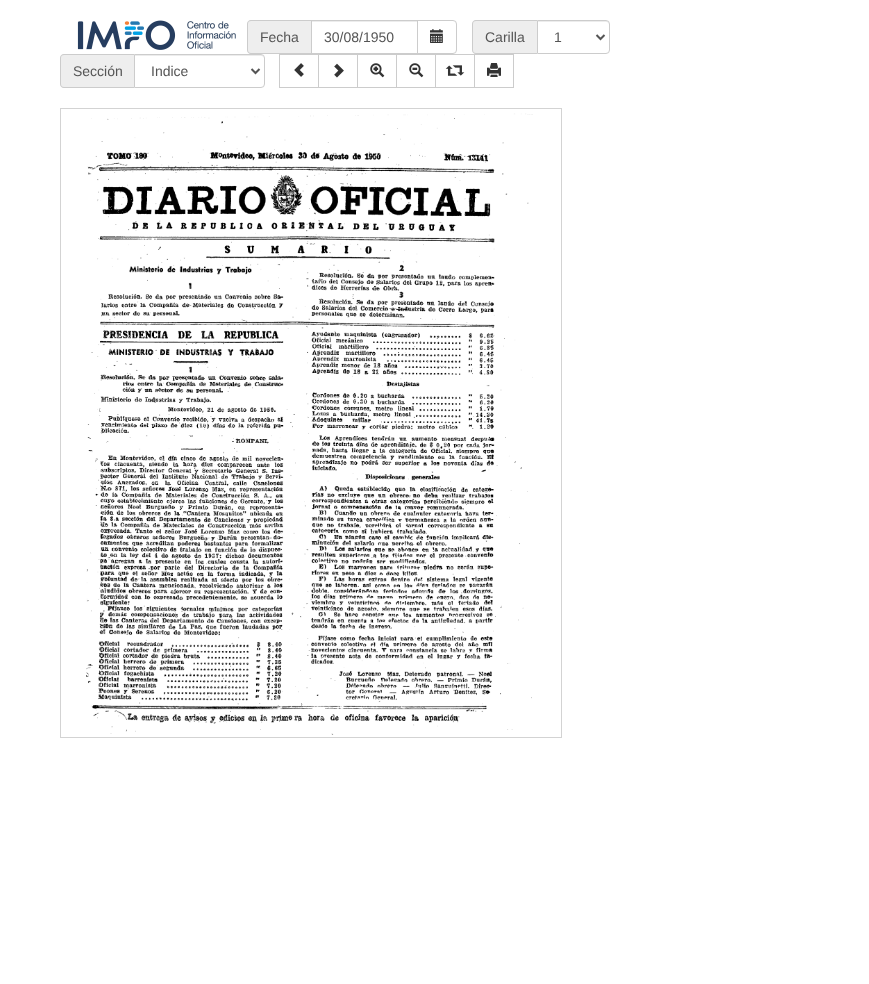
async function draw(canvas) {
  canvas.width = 869
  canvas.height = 984
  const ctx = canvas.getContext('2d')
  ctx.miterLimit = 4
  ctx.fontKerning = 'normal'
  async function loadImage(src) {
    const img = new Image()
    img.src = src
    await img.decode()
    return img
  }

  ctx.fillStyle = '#fff'
  ctx.fillRect(0, 0, 869, 984)
  ctx.drawImage(await loadImage('image0.png'), 77, 20, 159, 30)
  ctx.fillStyle = '#eee'
  ctx.beginPath()
  ctx.roundRect(247, 20, 64, 34, [4, 0, 0, 4])
  ctx.fill()
  ctx.fillStyle = '#ccc'
  ctx.beginPath()
  ctx.moveTo(251, 20)
  ctx.lineTo(311, 20)
  ctx.lineTo(311, 54)
  ctx.lineTo(251, 54)
  ctx.bezierCurveTo(249, 54, 247, 52, 247, 50)
  ctx.lineTo(247, 24)
  ctx.bezierCurveTo(247, 22, 249, 20, 251, 20)
  ctx.closePath()
  ctx.moveTo(251, 21)
  ctx.lineTo(311, 21)
  ctx.lineTo(311, 53)
  ctx.lineTo(251, 53)
  ctx.bezierCurveTo(249, 53, 248, 52, 248, 50)
  ctx.lineTo(248, 24)
  ctx.bezierCurveTo(248, 22, 249, 21, 251, 21)
  ctx.closePath()
  ctx.fill('evenodd')
  ctx.font = '14px Liberation Sans'
  ctx.fillStyle = '#555'
  ctx.fillText('Fecha', 260, 42)
  ctx.fillStyle = '#ececec'
  ctx.fillRect(312, 21, 105, 1)
  ctx.strokeStyle = '#ccc'
  ctx.strokeRect(311.5, 20.5, 106, 33)
  ctx.fillStyle = '#555'
  ctx.fillText('30/08/1950', 324, 42)
  ctx.beginPath()
  ctx.roundRect(417.5, 20.5, 39, 33, [0, 3.5, 3.5, 0])
  ctx.stroke()
  ctx.drawImage(await loadImage('image1.png'), 430, 29, 13, 14)
  ctx.fillStyle = '#eee'
  ctx.beginPath()
  ctx.roundRect(472, 20, 65, 34, [4, 0, 0, 4])
  ctx.fill()
  ctx.fillStyle = '#ccc'
  ctx.beginPath()
  ctx.moveTo(476, 20)
  ctx.lineTo(537, 20)
  ctx.lineTo(537, 54)
  ctx.lineTo(476, 54)
  ctx.bezierCurveTo(474, 54, 472, 52, 472, 50)
  ctx.lineTo(472, 24)
  ctx.bezierCurveTo(472, 22, 474, 20, 476, 20)
  ctx.closePath()
  ctx.moveTo(476, 21)
  ctx.lineTo(537, 21)
  ctx.lineTo(537, 53)
  ctx.lineTo(476, 53)
  ctx.bezierCurveTo(474, 53, 473, 52, 473, 50)
  ctx.lineTo(473, 24)
  ctx.bezierCurveTo(473, 22, 474, 21, 476, 21)
  ctx.closePath()
  ctx.fill('evenodd')
  ctx.fillStyle = '#555'
  ctx.fillText('Carilla', 485, 42)
  ctx.fillStyle = '#ececec'
  ctx.beginPath()
  ctx.moveTo(538, 22)
  ctx.lineTo(606, 22)
  ctx.bezierCurveTo(608, 22, 609, 23, 609, 25)
  ctx.lineTo(609, 24)
  ctx.bezierCurveTo(609, 22, 608, 21, 606, 21)
  ctx.lineTo(538, 21)
  ctx.closePath()
  ctx.fill()
  ctx.beginPath()
  ctx.roundRect(537.5, 20.5, 72, 33, [0, 3.5, 3.5, 0])
  ctx.stroke()
  ctx.beginPath()
  ctx.moveTo(596.5, 35)
  ctx.lineTo(600.5, 39)
  ctx.lineTo(604.5, 35)
  ctx.strokeStyle = '#555'
  ctx.lineWidth = 2
  ctx.stroke()
  ctx.fillStyle = '#555'
  ctx.fillText('1', 554, 42)
  ctx.fillStyle = '#eee'
  ctx.beginPath()
  ctx.roundRect(60, 54, 74, 34, [4, 0, 0, 4])
  ctx.fill()
  ctx.fillStyle = '#ccc'
  ctx.beginPath()
  ctx.moveTo(64, 54)
  ctx.lineTo(134, 54)
  ctx.lineTo(134, 88)
  ctx.lineTo(64, 88)
  ctx.bezierCurveTo(62, 88, 60, 86, 60, 84)
  ctx.lineTo(60, 58)
  ctx.bezierCurveTo(60, 56, 62, 54, 64, 54)
  ctx.closePath()
  ctx.moveTo(64, 55)
  ctx.lineTo(134, 55)
  ctx.lineTo(134, 87)
  ctx.lineTo(64, 87)
  ctx.bezierCurveTo(62, 87, 61, 86, 61, 84)
  ctx.lineTo(61, 58)
  ctx.bezierCurveTo(61, 56, 62, 55, 64, 55)
  ctx.closePath()
  ctx.fill('evenodd')
  ctx.fillStyle = '#555'
  ctx.fillText('Sección', 73, 76)
  ctx.fillStyle = '#ececec'
  ctx.beginPath()
  ctx.moveTo(135, 56)
  ctx.lineTo(261, 56)
  ctx.bezierCurveTo(263, 56, 264, 57, 264, 59)
  ctx.bezierCurveTo(264, 57, 263, 55, 261, 55)
  ctx.lineTo(135, 55)
  ctx.closePath()
  ctx.fill()
  ctx.beginPath()
  ctx.roundRect(134.5, 54.5, 130, 33, [0, 3.5, 3.5, 0])
  ctx.strokeStyle = '#ccc'
  ctx.lineWidth = 1
  ctx.stroke()
  ctx.beginPath()
  ctx.moveTo(251.5, 69)
  ctx.lineTo(255.5, 73)
  ctx.lineTo(259.5, 69)
  ctx.strokeStyle = '#555'
  ctx.lineWidth = 2
  ctx.stroke()
  ctx.fillStyle = '#555'
  ctx.fillText('Indice', 151, 76)
  ctx.strokeStyle = '#ccc'
  ctx.lineWidth = 1
  ctx.strokeRect(279.5, 54.5, 39, 33)
  ctx.drawImage(await loadImage('image2.png'), 294, 63, 10, 14)
  ctx.strokeRect(318.5, 54.5, 39, 33)
  ctx.drawImage(await loadImage('image3.png'), 334, 63, 10, 15)
  ctx.strokeRect(357.5, 54.5, 39, 33)
  ctx.drawImage(await loadImage('image4.png'), 370, 63, 15, 15)
  ctx.strokeRect(396.5, 54.5, 39, 33)
  ctx.drawImage(await loadImage('image5.png'), 409, 63, 15, 15)
  ctx.strokeRect(435.5, 54.5, 39, 33)
  ctx.drawImage(await loadImage('image6.png'), 445, 65, 20, 11)
  ctx.strokeRect(474.5, 54.5, 39, 33)
  ctx.drawImage(await loadImage('image7.png'), 487, 63, 14, 14)
  ctx.strokeStyle = '#d3d3d3'
  ctx.strokeRect(60.5, 108.5, 501, 629)
  ctx.drawImage(await loadImage('image8.png'), 86, 113, 447, 622)
}

draw(document.querySelector('canvas'))
